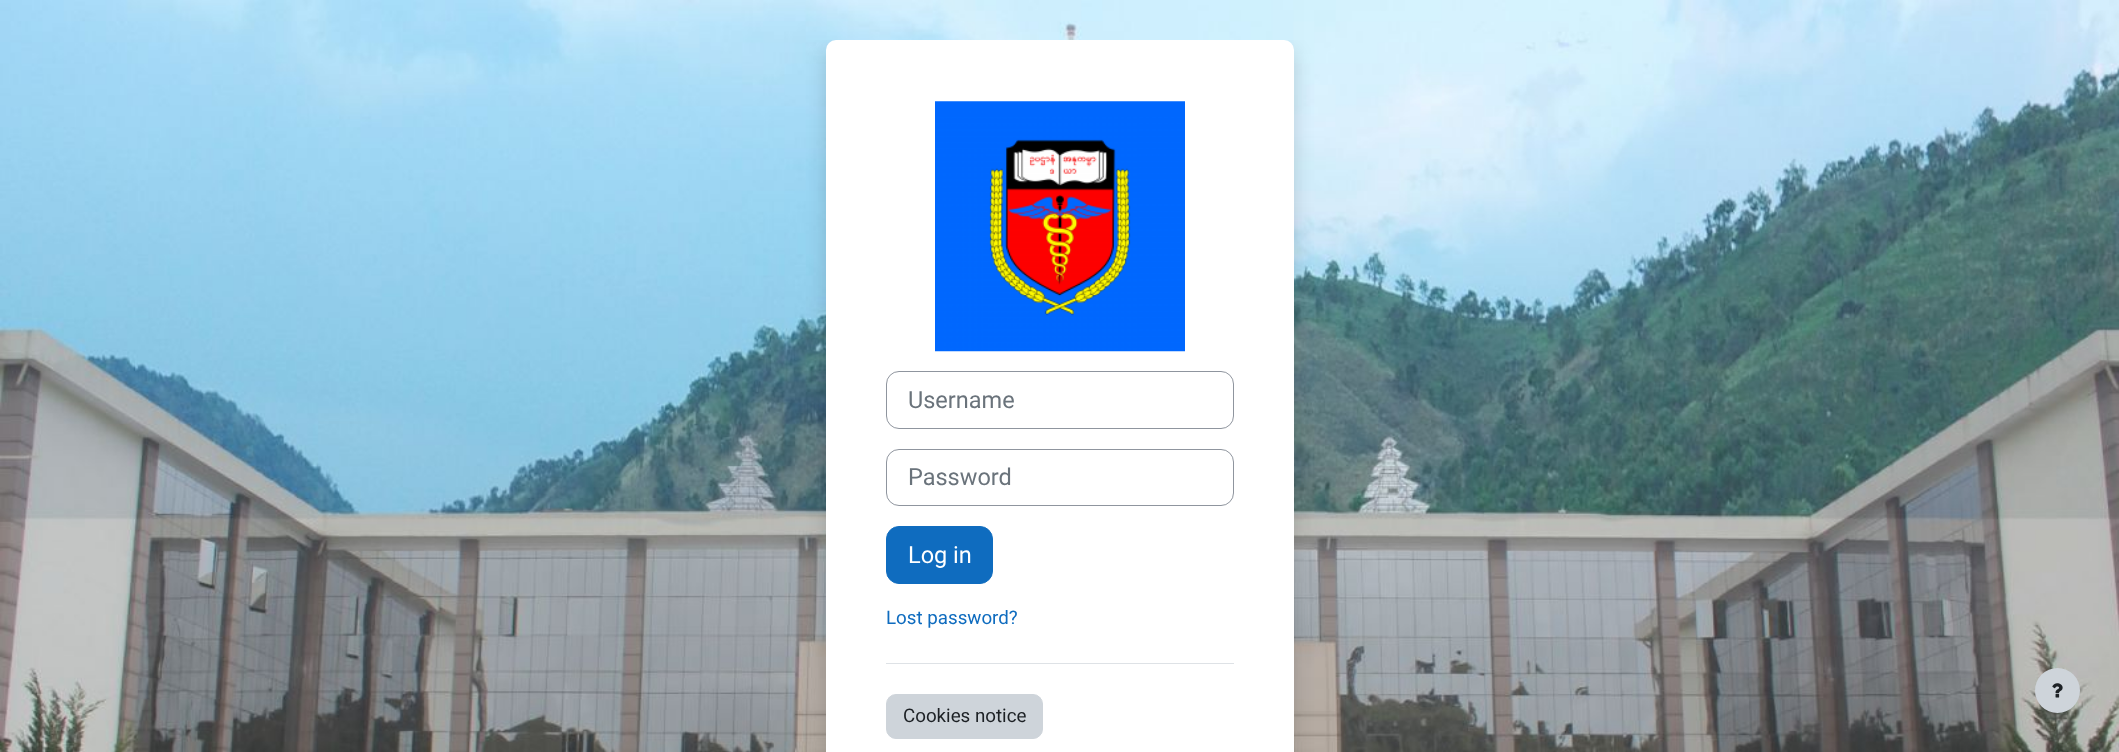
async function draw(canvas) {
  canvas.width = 2119
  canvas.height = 752
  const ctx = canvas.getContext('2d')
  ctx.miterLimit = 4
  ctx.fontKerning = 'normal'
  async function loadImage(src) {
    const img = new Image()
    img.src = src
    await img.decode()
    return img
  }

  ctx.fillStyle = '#fff'
  ctx.fillRect(0, 0, 2119, 752)
  ctx.drawImage(await loadImage('image0.png'), 0, 0, 2119, 752)
  ctx.save()
  ctx.beginPath()
  ctx.rect(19, 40, 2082, 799)
  ctx.clip()
  ctx.fillStyle = '#00000026'
  ctx.filter = 'blur(10px)'
  ctx.beginPath()
  ctx.roundRect(826, 50, 468, 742, 10)
  ctx.fill()
  ctx.filter = 'none'
  ctx.restore()
  ctx.beginPath()
  ctx.roundRect(826, 40, 468, 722, 10)
  ctx.fill()
  ctx.drawImage(await loadImage('image1.png'), 935, 101, 250, 251)
  ctx.beginPath()
  ctx.roundRect(886.5, 371.5, 347, 57, 12.5)
  ctx.strokeStyle = '#8f959e'
  ctx.stroke()
  ctx.font = '23.5px Roboto'
  ctx.fillStyle = '#6a737b'
  ctx.fillText('Username', 908, 408)
  ctx.beginPath()
  ctx.roundRect(886.5, 449.5, 347, 56, 12.5)
  ctx.stroke()
  ctx.fillText('Password', 908, 485)
  ctx.fillStyle = '#0f6cbf'
  ctx.beginPath()
  ctx.roundRect(886.5, 526.5, 106, 57, 12.5)
  ctx.fill()
  ctx.strokeStyle = '#0f6cbf'
  ctx.stroke()
  ctx.fillStyle = '#fff'
  ctx.fillText('Log in', 908, 563)
  ctx.font = '18.75px Roboto'
  ctx.fillStyle = '#0f6cbf'
  ctx.fillText('Lost password?', 886, 624)
  ctx.fillStyle = '#dee2e6'
  ctx.fillRect(886, 663, 348, 1)
  ctx.fillStyle = '#ced4da'
  ctx.beginPath()
  ctx.roundRect(886.5, 694.5, 156, 44, 9.5)
  ctx.fill()
  ctx.strokeStyle = '#ced4da'
  ctx.stroke()
  ctx.fillStyle = '#1d2125'
  ctx.fillText('Cookies notice', 903, 722)
  ctx.fillStyle = '#ced4da'
  ctx.beginPath()
  ctx.arc(2057.5, 690.5, 22.5, 0, 2 * Math.PI)
  ctx.fill()
  ctx.drawImage(await loadImage('image2.png'), 2052, 683, 11, 15)
}

draw(document.querySelector('canvas'))
